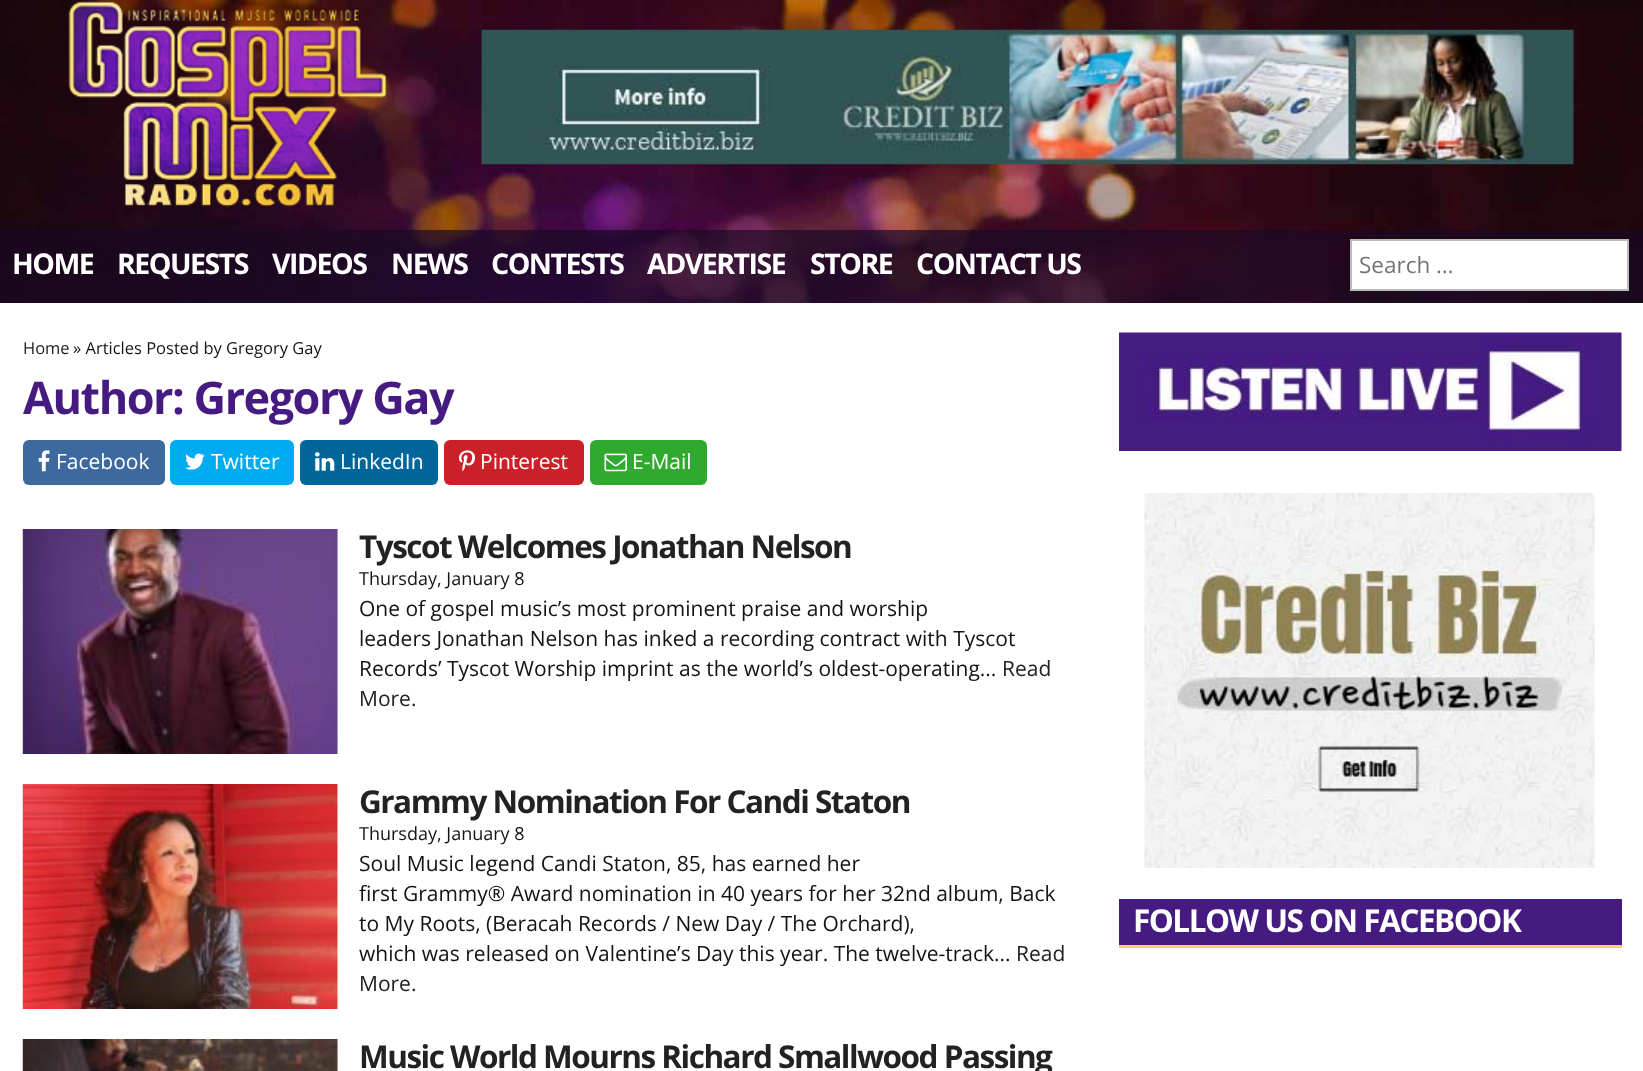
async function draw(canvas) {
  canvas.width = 1643
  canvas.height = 1071
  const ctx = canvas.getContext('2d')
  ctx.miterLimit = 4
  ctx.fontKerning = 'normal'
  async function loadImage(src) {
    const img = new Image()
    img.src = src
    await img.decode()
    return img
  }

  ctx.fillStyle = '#fff'
  ctx.fillRect(0, 0, 1643, 1071)
  ctx.drawImage(await loadImage('image0.png'), 0, 0, 1643, 303)
  ctx.drawImage(await loadImage('image1.png'), 68, 1, 320, 206)
  ctx.drawImage(await loadImage('image2.png'), 481, 29, 1093, 136)
  ctx.fillStyle = '#1a0924b3'
  ctx.fillRect(0, 230, 1643, 73)
  ctx.letterSpacing = '-1.5px'
  ctx.font = 'bold 28.5px Open Sans'
  ctx.fillStyle = '#fff'
  ctx.fillText('HOME', 12, 274)
  ctx.fillText('REQUESTS', 117, 274)
  ctx.fillText('VIDEOS', 272, 274)
  ctx.fillText('NEWS', 391, 274)
  ctx.fillText('CONTESTS', 491, 274)
  ctx.fillText('ADVERTISE', 647, 274)
  ctx.fillText('STORE', 810, 274)
  ctx.fillText('CONTACT US', 916, 274)
  ctx.beginPath()
  ctx.rect(1351, 240, 277, 50)
  ctx.fill()
  ctx.strokeStyle = '#bbb'
  ctx.lineWidth = 2
  ctx.stroke()
  ctx.letterSpacing = '0px'
  ctx.font = '22.5px Open Sans'
  ctx.fillStyle = '#757575'
  ctx.fillText('Search …', 1359, 273)
  ctx.font = '16.5px Open Sans'
  ctx.fillStyle = '#222'
  ctx.fillText('Home', 23, 354)
  ctx.fillStyle = '#141414'
  ctx.fillText('» Articles Posted by Gregory Gay', 73, 354)
  ctx.letterSpacing = '-1.5px'
  ctx.font = 'bold 45px Open Sans'
  ctx.fillStyle = '#451b82'
  ctx.fillText('Author: Gregory Gay', 23, 414)
  ctx.fillStyle = '#3d699e'
  ctx.beginPath()
  ctx.roundRect(23, 440, 142, 45, 6)
  ctx.fill()
  ctx.drawImage(await loadImage('image3.png'), 38, 450, 12, 22)
  ctx.letterSpacing = '0px'
  ctx.font = '21px Open Sans'
  ctx.fillStyle = '#fff'
  ctx.fillText('Facebook', 56, 469)
  ctx.fillStyle = '#00abf0'
  ctx.beginPath()
  ctx.roundRect(170, 440, 124, 45, 6)
  ctx.fill()
  ctx.drawImage(await loadImage('image4.png'), 185, 453, 20, 17)
  ctx.fillStyle = '#fff'
  ctx.fillText('Twitter', 211, 469)
  ctx.fillStyle = '#069'
  ctx.beginPath()
  ctx.roundRect(300, 440, 138, 45, 6)
  ctx.fill()
  ctx.drawImage(await loadImage('image5.png'), 315, 452, 20, 19)
  ctx.fillStyle = '#fff'
  ctx.fillText('LinkedIn', 340, 469)
  ctx.fillStyle = '#ca2027'
  ctx.beginPath()
  ctx.roundRect(444, 440, 140, 45, 6)
  ctx.fill()
  ctx.drawImage(await loadImage('image6.png'), 459, 450, 17, 22)
  ctx.fillStyle = '#fff'
  ctx.fillText('Pinterest', 480, 469)
  ctx.fillStyle = '#2fa92e'
  ctx.beginPath()
  ctx.roundRect(590, 440, 117, 45, 6)
  ctx.fill()
  ctx.drawImage(await loadImage('image7.png'), 604, 453, 23, 19)
  ctx.fillStyle = '#fff'
  ctx.fillText('E-Mail', 632, 469)
  ctx.drawImage(await loadImage('image8.png'), 22, 529, 316, 225)
  ctx.letterSpacing = '-1.5px'
  ctx.font = 'bold 31.5px Open Sans'
  ctx.fillStyle = '#222'
  ctx.fillText('Tyscot Welcomes Jonathan Nelson', 359, 558)
  ctx.letterSpacing = '0px'
  ctx.font = '18px Open Sans'
  ctx.fillStyle = '#141414'
  ctx.fillText('Thursday, January 8', 359, 585)
  ctx.font = '21px Open Sans'
  ctx.fillText('One of gospel music’s most prominent praise and worship', 359, 616)
  ctx.fillText('leaders Jonathan Nelson has inked a recording contract with Tyscot', 359, 646)
  ctx.fillText('Records’ Tyscot Worship imprint as the world’s oldest-operating...', 359, 676)
  ctx.fillStyle = '#222'
  ctx.fillText('Read', 1002, 676)
  ctx.fillText('More.', 359, 706)
  ctx.drawImage(await loadImage('image9.png'), 22, 784, 316, 225)
  ctx.letterSpacing = '-1.5px'
  ctx.font = 'bold 31.5px Open Sans'
  ctx.fillText('Grammy Nomination For Candi Staton', 359, 813)
  ctx.letterSpacing = '0px'
  ctx.font = '18px Open Sans'
  ctx.fillStyle = '#141414'
  ctx.fillText('Thursday, January 8', 359, 840)
  ctx.font = '21px Open Sans'
  ctx.fillText('Soul Music legend Candi Staton, 85, has earned her', 359, 871)
  ctx.fillText('first Grammy® Award nomination in 40 years for her 32nd album, Back', 359, 901)
  ctx.fillText('to My Roots, (Beracah Records / New Day / The Orchard),', 359, 931)
  ctx.fillText('which was released on Valentine’s Day this year. The twelve-track...', 359, 961)
  ctx.fillStyle = '#222'
  ctx.fillText('Read', 1016, 961)
  ctx.fillText('More.', 359, 991)
  ctx.drawImage(await loadImage('image10.png'), 22, 1039, 316, 32)
  ctx.letterSpacing = '-1.5px'
  ctx.font = 'bold 31.5px Open Sans'
  ctx.fillText('Music World Mourns Richard Smallwood Passing', 359, 1068)
  ctx.drawImage(await loadImage('image11.png'), 1119, 332, 503, 119)
  ctx.drawImage(await loadImage('image12.png'), 1144, 493, 451, 375)
  ctx.fillStyle = '#451b82'
  ctx.fillRect(1119, 899, 503, 46)
  ctx.fillStyle = '#fad45d'
  ctx.fillRect(1119, 945, 503, 3)
  ctx.fillStyle = '#fff'
  ctx.fillText('FOLLOW US ON FACEBOOK', 1133, 932)
}

draw(document.querySelector('canvas'))
